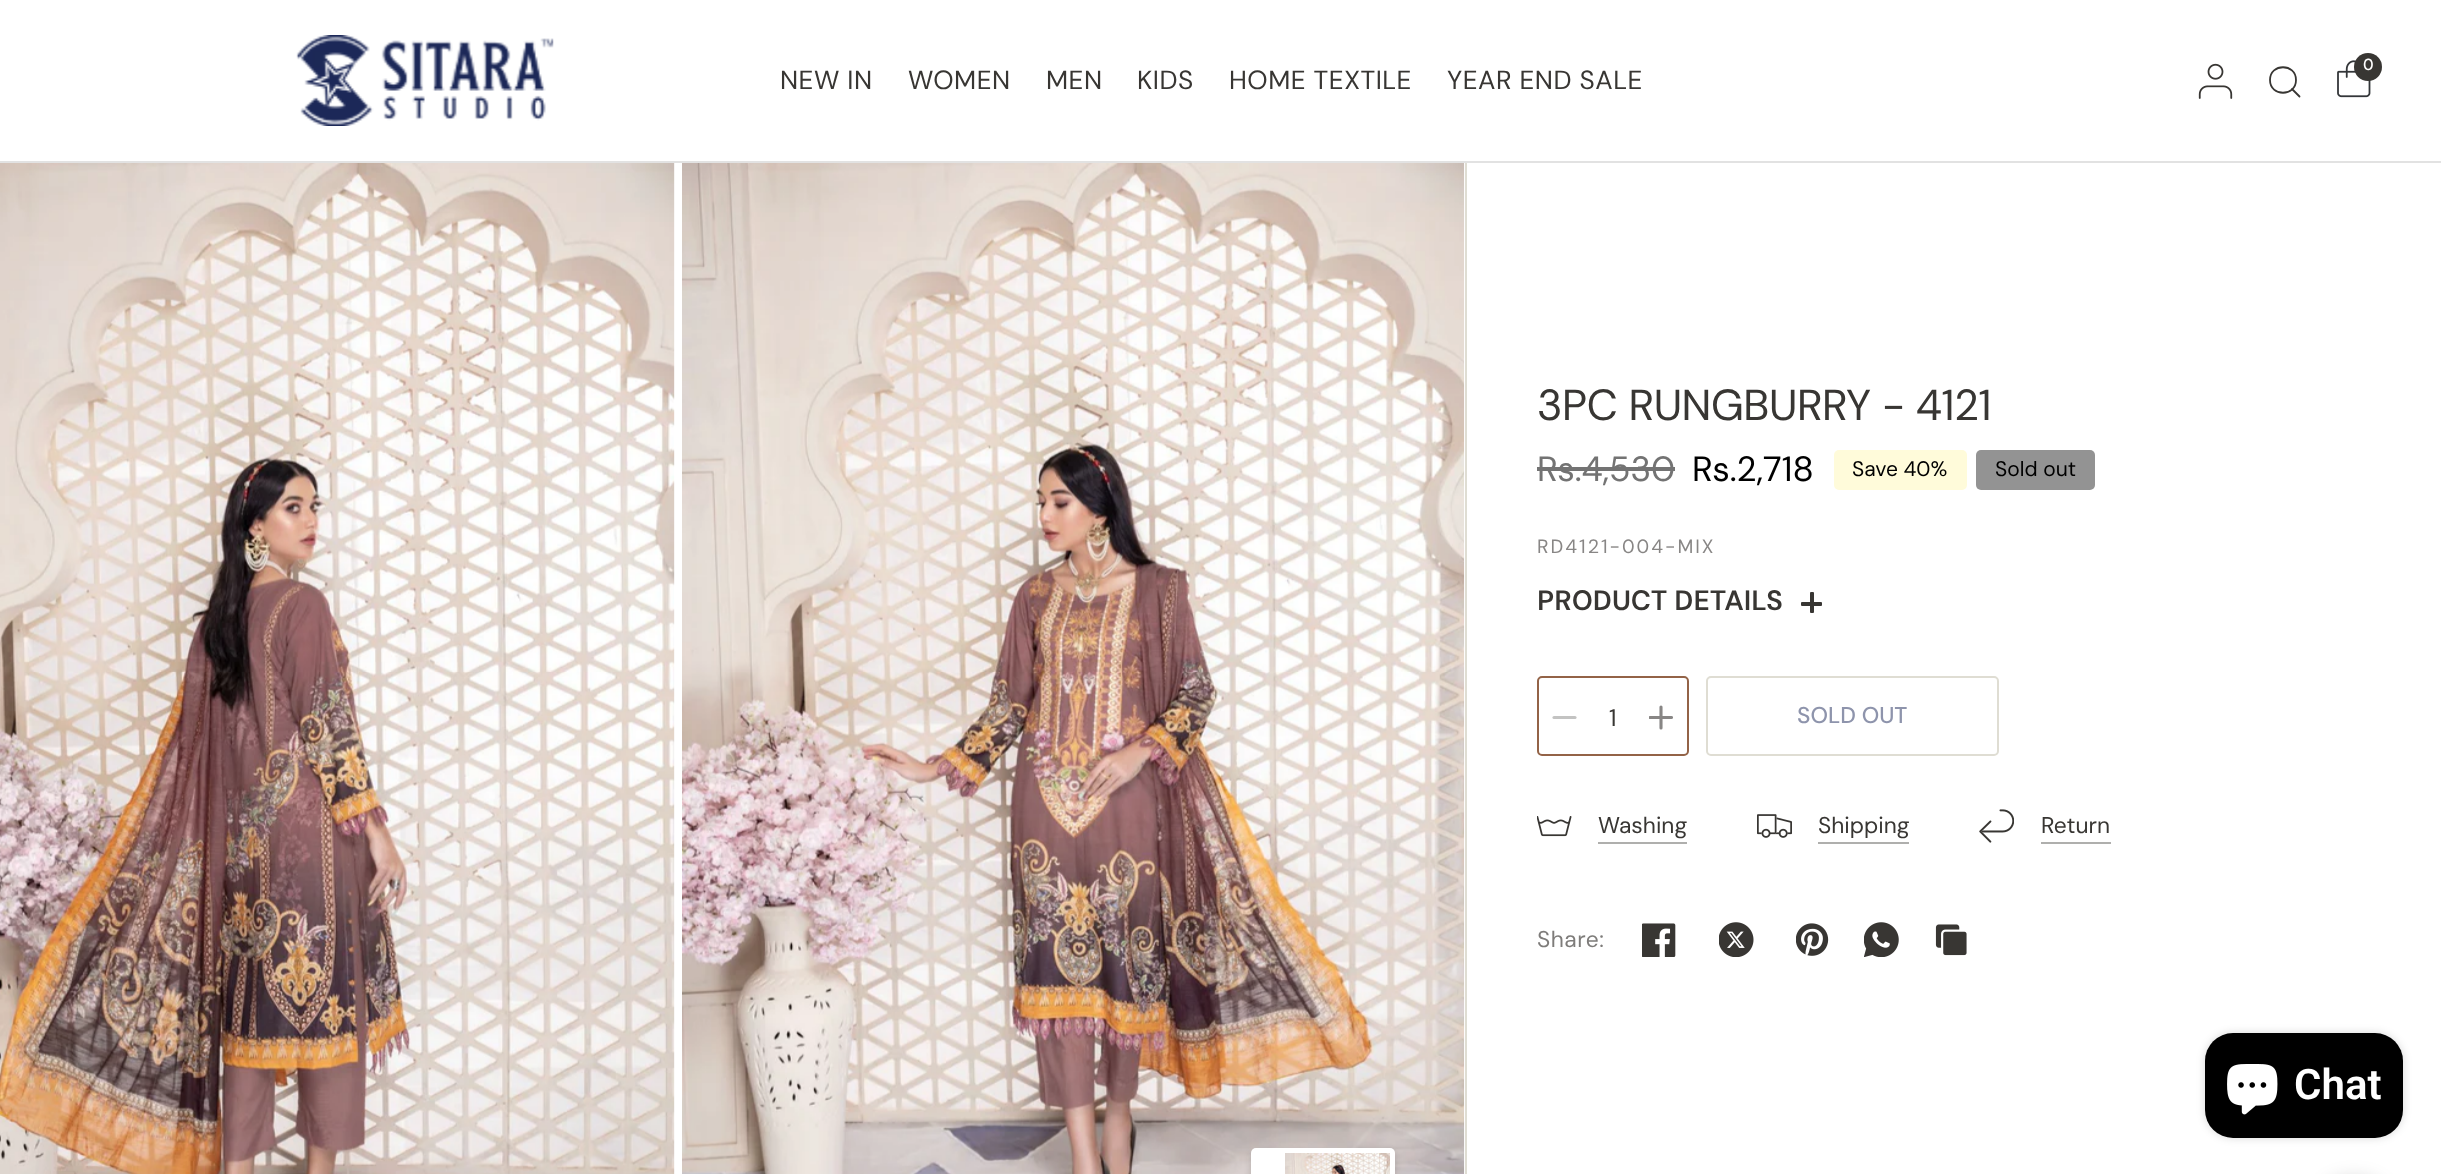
async function draw(canvas) {
  canvas.width = 2441
  canvas.height = 1174
  const ctx = canvas.getContext('2d')
  ctx.miterLimit = 4
  ctx.fontKerning = 'normal'
  async function loadImage(src) {
    const img = new Image()
    img.src = src
    await img.decode()
    return img
  }

  ctx.fillStyle = '#fff'
  ctx.fillRect(0, 0, 2441, 1174)
  ctx.fillStyle = '#e2e2e2'
  ctx.fillRect(0, 161, 2441, 2)
  ctx.drawImage(await loadImage('image0.png'), 296, 35, 258, 91)
  ctx.drawImage(await loadImage('image1.png'), 2198, 63, 35, 36)
  ctx.beginPath()
  ctx.moveTo(2292, 89)
  ctx.lineTo(2299.5, 96.5)
  ctx.moveTo(2296, 80)
  ctx.bezierCurveTo(2296, 97, 2270, 97, 2270, 80)
  ctx.bezierCurveTo(2270, 63, 2296, 63, 2296, 80)
  ctx.closePath()
  ctx.strokeStyle = '#383633'
  ctx.lineWidth = 1.8
  ctx.lineCap = 'round'
  ctx.lineJoin = 'round'
  ctx.stroke()
  ctx.drawImage(await loadImage('image2.png'), 2337, 60, 34, 38)
  ctx.fillStyle = '#383633'
  ctx.beginPath()
  ctx.arc(2368, 67, 14, 0, 2 * Math.PI)
  ctx.fill()
  ctx.font = '500 16px "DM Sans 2"'
  ctx.fillStyle = '#fff'
  ctx.fillText('0', 2363, 70)
  ctx.letterSpacing = '0.5px'
  ctx.font = '26.25px "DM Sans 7"'
  ctx.fillStyle = '#383633'
  ctx.fillText('NEW IN', 780, 89)
  ctx.fillText('WOMEN', 908, 89)
  ctx.fillText('MEN', 1046, 89)
  ctx.fillText('KIDS', 1137, 89)
  ctx.fillText('HOME TEXTILE', 1229, 89)
  ctx.fillText('YEAR END SALE', 1447, 89)
  ctx.drawImage(await loadImage('image3.png'), 0, 163, 675, 1011)
  ctx.drawImage(await loadImage('image4.png'), 682, 163, 783, 1011)
  ctx.fillStyle = '#00000026'
  ctx.filter = 'blur(3.5px)'
  ctx.beginPath()
  ctx.roundRect(1251, 1152, 144, 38, 5)
  ctx.fill()
  ctx.filter = 'none'
  ctx.fillStyle = '#fff'
  ctx.beginPath()
  ctx.roundRect(1251, 1148, 144, 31, 5)
  ctx.fill()
  ctx.drawImage(await loadImage('image5.png'), 1285, 1153, 105, 21)
  ctx.fillStyle = '#dfddd3'
  ctx.fillRect(1465, 163, 2, 1011)
  ctx.letterSpacing = '-0.4px'
  ctx.font = '43.4px DM Sans'
  ctx.fillStyle = '#383633'
  ctx.fillText('3PC RUNGBURRY - 4121', 1537, 420)
  ctx.letterSpacing = '0px'
  ctx.font = '35px "DM Sans 2"'
  ctx.fillStyle = '#737373'
  ctx.fillText('Rs.4,530', 1537, 481)
  ctx.fillRect(1537, 467, 138, 4)
  ctx.fillStyle = '#000'
  ctx.fillText('Rs.2,718', 1692, 481)
  ctx.fillStyle = '#fffbda'
  ctx.beginPath()
  ctx.roundRect(1834, 450, 133, 40, 5)
  ctx.fill()
  ctx.font = '21px "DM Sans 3"'
  ctx.fillStyle = '#000'
  ctx.fillText('Save 40%', 1852, 476)
  ctx.fillStyle = '#939393'
  ctx.beginPath()
  ctx.roundRect(1976, 450, 119, 40, 5)
  ctx.fill()
  ctx.fillStyle = '#000'
  ctx.fillText('Sold out', 1995, 476)
  ctx.letterSpacing = '2px'
  ctx.font = '19.25px "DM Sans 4"'
  ctx.fillStyle = '#888685'
  ctx.fillText('RD4121-004-MIX', 1537, 553)
  ctx.letterSpacing = '0px'
  ctx.font = '600 28px DM Sans'
  ctx.fillStyle = '#383633'
  ctx.fillText('PRODUCT DETAILS', 1537, 610)
  ctx.beginPath()
  ctx.roundRect(1810, 592, 4, 21, 1)
  ctx.fill()
  ctx.beginPath()
  ctx.roundRect(1801, 602, 21, 4, 1)
  ctx.fill()
  ctx.beginPath()
  ctx.roundRect(1538, 677, 150, 78, 4)
  ctx.strokeStyle = '#936347'
  ctx.lineWidth = 2
  ctx.lineJoin = 'miter'
  ctx.stroke()
  ctx.beginPath()
  ctx.moveTo(1554, 717.5)
  ctx.lineTo(1575, 717.5)
  ctx.strokeStyle = '#c3c3c2'
  ctx.lineWidth = 3.1
  ctx.lineJoin = 'round'
  ctx.stroke()
  ctx.font = '24px "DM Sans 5"'
  ctx.fillText('1', 1609, 726)
  ctx.save()
  ctx.beginPath()
  ctx.rect(1649, 705, 24, 25)
  ctx.clip()
  ctx.beginPath()
  ctx.moveTo(1650, 717.5)
  ctx.lineTo(1671.5, 717.5)
  ctx.strokeStyle = '#888685'
  ctx.stroke()
  ctx.restore()
  ctx.beginPath()
  ctx.moveTo(1661, 707)
  ctx.lineTo(1661, 728)
  ctx.strokeStyle = '#888685'
  ctx.stroke()
  ctx.beginPath()
  ctx.roundRect(1707, 677, 291, 78, 4)
  ctx.strokeStyle = '#dfddd3'
  ctx.lineWidth = 2
  ctx.lineJoin = 'miter'
  ctx.stroke()
  ctx.font = '500 22.75px DM Sans'
  ctx.fillStyle = '#8e94ac'
  ctx.fillText('SOLD OUT', 1797, 723)
  ctx.drawImage(await loadImage('image6.png'), 1537, 816, 35, 21)
  ctx.font = '22.75px "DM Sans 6"'
  ctx.fillStyle = '#383633'
  ctx.fillText('Washing', 1598, 833)
  ctx.fillStyle = '#afafad'
  ctx.fillRect(1598, 842, 89, 2)
  ctx.drawImage(await loadImage('image7.png'), 1757, 814, 35, 24)
  ctx.fillStyle = '#383633'
  ctx.fillText('Shipping', 1818, 833)
  ctx.fillStyle = '#afafad'
  ctx.fillRect(1818, 842, 91, 2)
  ctx.drawImage(await loadImage('image8.png'), 1979, 809, 35, 34)
  ctx.fillStyle = '#383633'
  ctx.fillText('Return', 2041, 833)
  ctx.fillStyle = '#afafad'
  ctx.fillRect(2041, 842, 70, 2)
  ctx.letterSpacing = '0.5px'
  ctx.fillStyle = '#7e7c7a'
  ctx.fillText('Share:', 1537, 947)
  ctx.drawImage(await loadImage('image9.png'), 1642, 923, 34, 34)
  ctx.drawImage(await loadImage('image10.png'), 1719, 922, 35, 35)
  ctx.drawImage(await loadImage('image11.png'), 1796, 923, 33, 33)
  ctx.drawImage(await loadImage('image12.png'), 1864, 922, 35, 35)
  ctx.drawImage(await loadImage('image13.png'), 1935, 924, 32, 32)
  ctx.fillStyle = '#00000026'
  ctx.filter = 'blur(4.5px)'
  ctx.beginPath()
  ctx.roundRect(2205, 1033, 198, 105, 28)
  ctx.fill()
  ctx.filter = 'none'
  ctx.fillStyle = '#000'
  ctx.beginPath()
  ctx.roundRect(2205, 1033, 198, 105, 28)
  ctx.fill()
  ctx.drawImage(await loadImage('image14.png'), 2227, 1064, 51, 51)
  ctx.letterSpacing = '0px'
  ctx.font = '600 42px Roboto'
  ctx.fillStyle = '#fff'
  ctx.fillText('Chat', 2294, 1099)
  ctx.fillStyle = '#00000026'
  ctx.filter = 'blur(9px)'
  ctx.beginPath()
  ctx.roundRect(2319, 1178, 70, 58, 35)
  ctx.fill()
  ctx.filter = 'none'
}

draw(document.querySelector('canvas'))
